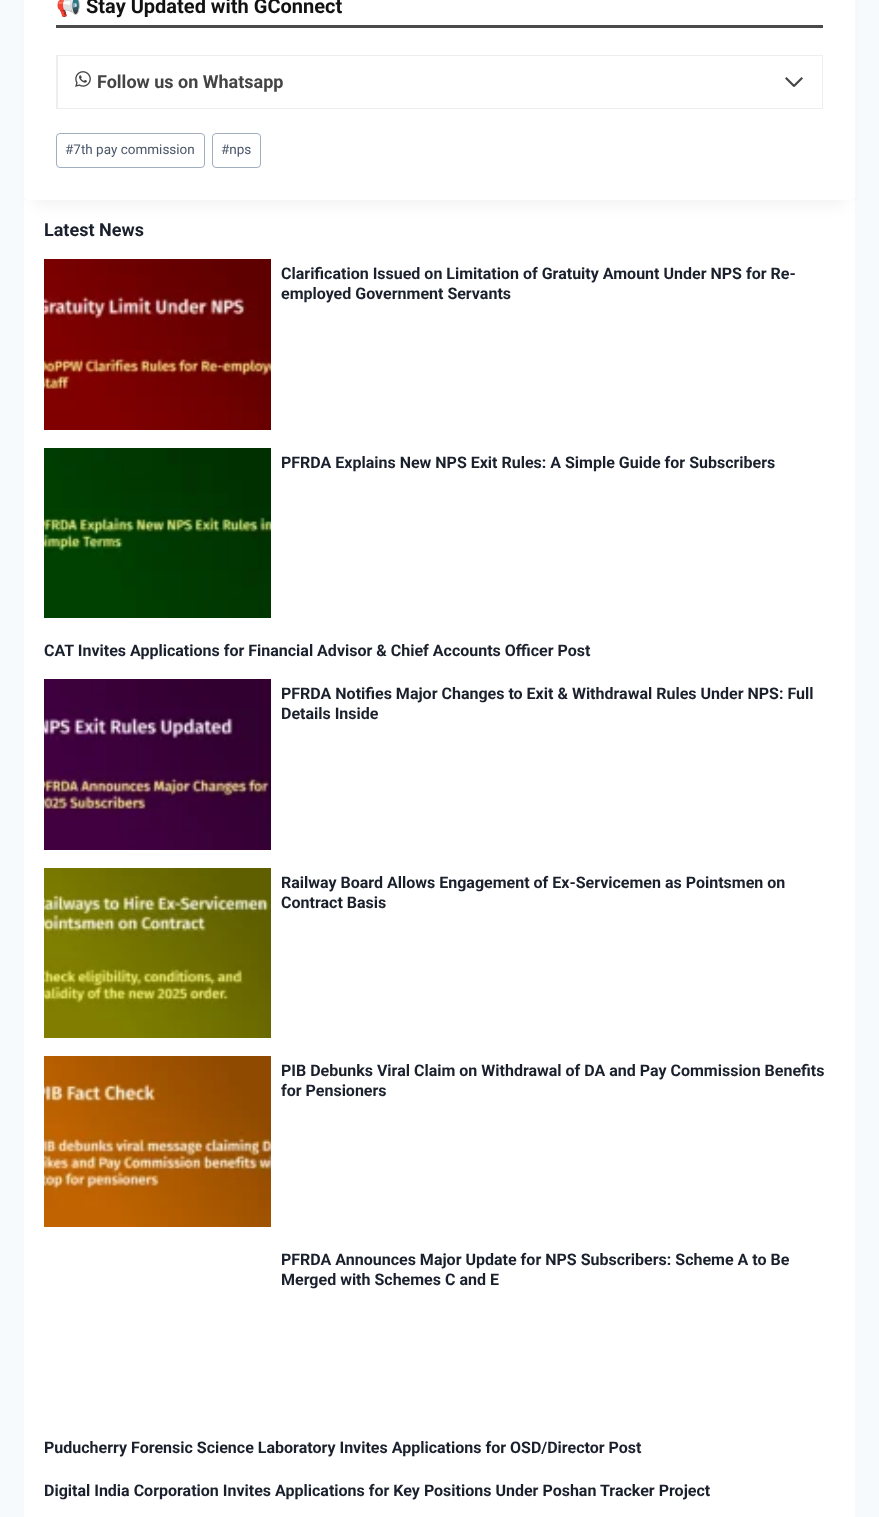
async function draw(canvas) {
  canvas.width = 879
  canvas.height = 1517
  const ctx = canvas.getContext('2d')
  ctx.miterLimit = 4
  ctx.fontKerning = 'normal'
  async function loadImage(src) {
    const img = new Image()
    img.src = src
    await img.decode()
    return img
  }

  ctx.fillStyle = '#f7fafc'
  ctx.fillRect(0, 0, 879, 1517)
  ctx.fillStyle = '#fff'
  ctx.fillRect(24, 200, 831, 1317)
  ctx.fillStyle = '#0000000d'
  ctx.filter = 'blur(7.5px)'
  ctx.beginPath()
  ctx.rect(34, -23, 811, 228)
  ctx.fill()
  ctx.filter = 'none'
  ctx.fillStyle = '#fff'
  ctx.beginPath()
  ctx.roundRect(24, -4, 831, 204, 4)
  ctx.fill()
  ctx.font = 'bold 20px Noto Color Emoji'
  ctx.fillStyle = '#121212'
  ctx.fillText('📢', 56, 13)
  ctx.font = 'bold 20px Roboto'
  ctx.fillText('Stay Updated with GConnect', 86, 13)
  ctx.fillStyle = '#4a4a4a'
  ctx.fillRect(56, 25, 767, 3)
  ctx.fillStyle = '#eee'
  ctx.fillRect(56, 55, 767, 1)
  ctx.fillRect(822, 55, 1, 54)
  ctx.fillRect(56, 108, 767, 1)
  ctx.fillRect(56, 55, 2, 54)
  ctx.drawImage(await loadImage('image0.png'), 75, 71, 16, 16)
  ctx.font = 'bold 18px Roboto'
  ctx.fillStyle = '#444'
  ctx.fillText('Follow us on Whatsapp', 97, 88)
  ctx.beginPath()
  ctx.moveTo(786.5, 77)
  ctx.lineTo(795, 85.5)
  ctx.lineTo(793.5, 87)
  ctx.lineTo(785, 78.5)
  ctx.closePath()
  ctx.fill()
  ctx.beginPath()
  ctx.moveTo(793, 85.5)
  ctx.lineTo(801.5, 77)
  ctx.lineTo(803, 78.5)
  ctx.lineTo(794.5, 87)
  ctx.closePath()
  ctx.fill()
  ctx.beginPath()
  ctx.roundRect(56.5, 133.5, 148, 34, 3.5)
  ctx.strokeStyle = '#a0aec0'
  ctx.stroke()
  ctx.font = '13.5px Roboto'
  ctx.fillStyle = '#4a5568'
  ctx.fillText('#7th pay commission', 65, 154)
  ctx.beginPath()
  ctx.roundRect(212.5, 133.5, 48, 34, 3.5)
  ctx.stroke()
  ctx.fillText('#nps', 221, 154)
  ctx.font = 'bold 18px Roboto'
  ctx.fillStyle = '#1a202c'
  ctx.fillText('Latest News', 44, 236)
  ctx.drawImage(await loadImage('image1.png'), 44, 259, 227, 171)
  ctx.font = 'bold 16px Roboto'
  ctx.fillText('Clarification Issued on Limitation of Gratuity Amount Under NPS for Re-', 281, 279)
  ctx.fillText('employed Government Servants', 281, 299)
  ctx.drawImage(await loadImage('image2.png'), 44, 448, 227, 170)
  ctx.fillText('PFRDA Explains New NPS Exit Rules: A Simple Guide for Subscribers', 281, 468)
  ctx.fillText('CAT Invites Applications for Financial Advisor & Chief Accounts Officer Post', 44, 656)
  ctx.drawImage(await loadImage('image3.png'), 44, 679, 227, 171)
  ctx.fillText('PFRDA Notifies Major Changes to Exit & Withdrawal Rules Under NPS: Full', 281, 699)
  ctx.fillText('Details Inside', 281, 719)
  ctx.drawImage(await loadImage('image4.png'), 44, 868, 227, 170)
  ctx.fillText('Railway Board Allows Engagement of Ex-Servicemen as Pointsmen on', 281, 888)
  ctx.fillText('Contract Basis', 281, 908)
  ctx.drawImage(await loadImage('image5.png'), 44, 1056, 227, 171)
  ctx.fillText('PIB Debunks Viral Claim on Withdrawal of DA and Pay Commission Benefits', 281, 1076)
  ctx.fillText('for Pensioners', 281, 1096)
  ctx.fillText('PFRDA Announces Major Update for NPS Subscribers: Scheme A to Be', 281, 1265)
  ctx.fillText('Merged with Schemes C and E', 281, 1285)
  ctx.fillText('Puducherry Forensic Science Laboratory Invites Applications for OSD/Director Post', 44, 1453)
  ctx.fillText('Digital India Corporation Invites Applications for Key Positions Under Poshan Tracker Project', 44, 1496)
}

draw(document.querySelector('canvas'))
